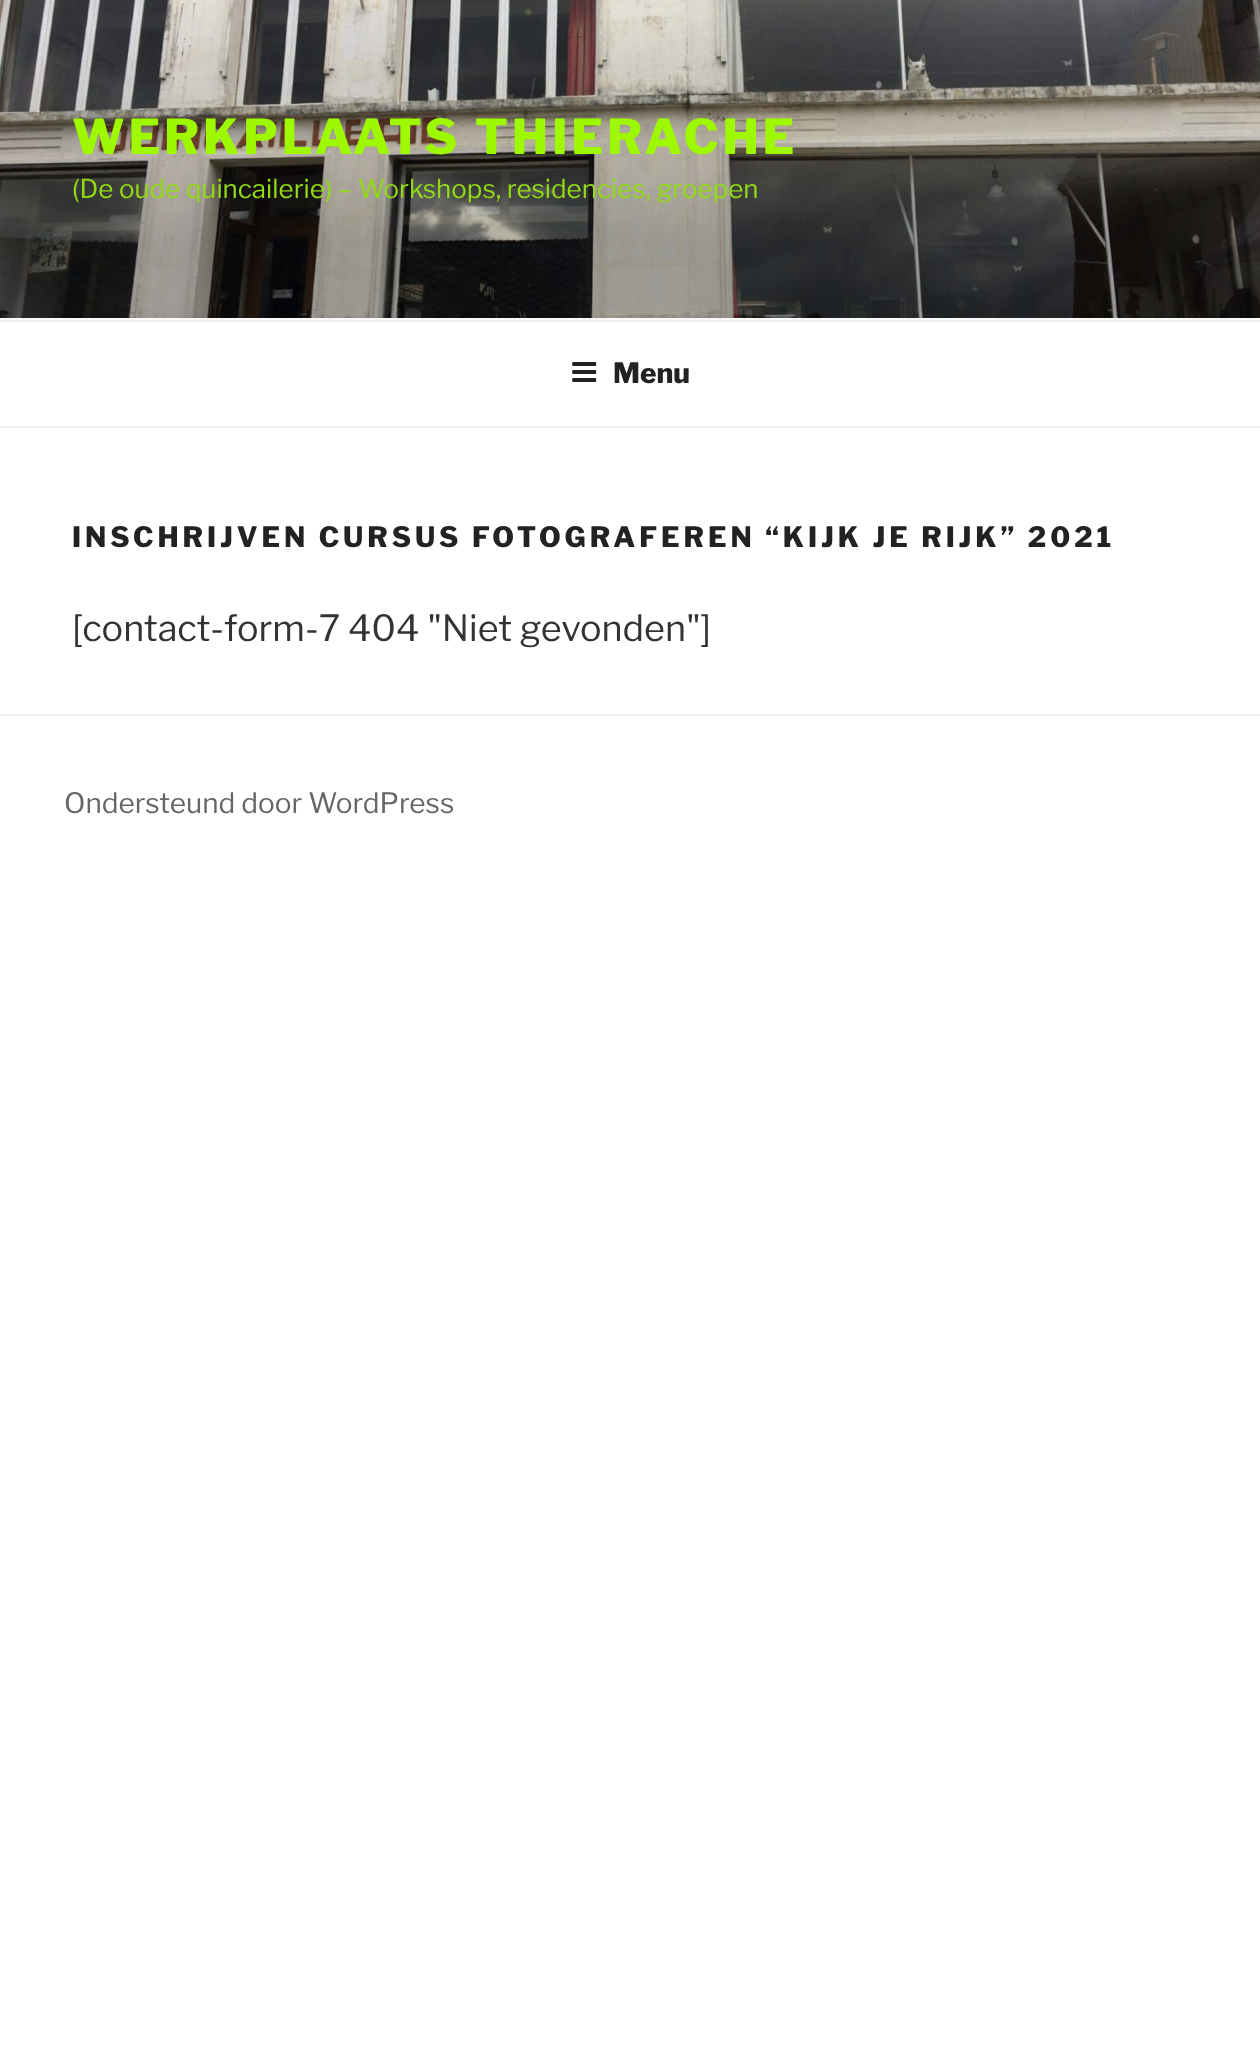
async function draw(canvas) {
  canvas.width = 1260
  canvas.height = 2063
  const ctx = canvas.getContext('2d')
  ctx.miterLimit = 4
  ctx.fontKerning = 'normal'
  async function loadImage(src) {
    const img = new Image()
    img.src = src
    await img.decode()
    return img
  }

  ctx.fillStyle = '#fff'
  ctx.fillRect(0, 0, 1260, 2063)
  ctx.fillStyle = '#fafafa'
  ctx.fillRect(0, 318, 1260, 2)
  ctx.drawImage(await loadImage('image0.png'), 0, 0, 1260, 318)
  ctx.letterSpacing = '3.8px'
  ctx.font = '100 48px Libre Franklin'
  ctx.fillStyle = '#9ef900'
  ctx.fillText('WERKPLAATS THIERACHE', 72, 154)
  ctx.letterSpacing = '0px'
  ctx.font = '100 26px "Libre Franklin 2"'
  ctx.fillStyle = '#92da12'
  ctx.fillText('(De oude quincailerie) – Workshops, residencies, groepen', 72, 198)
  ctx.fillStyle = '#eee'
  ctx.fillRect(0, 320, 1260, 2)
  ctx.fillRect(0, 426, 1260, 2)
  ctx.drawImage(await loadImage('image1.png'), 572, 362, 25, 20)
  ctx.font = '100 28px Libre Franklin'
  ctx.fillStyle = '#222'
  ctx.fillText('Menu', 613, 383)
  ctx.letterSpacing = '3.92px'
  ctx.fillText('INSCHRIJVEN CURSUS FOTOGRAFEREN “KIJK JE RIJK” 2021', 72, 547)
  ctx.letterSpacing = '0px'
  ctx.font = '100 36px "Libre Franklin 2"'
  ctx.fillStyle = '#333'
  ctx.fillText('[contact-form-7 404 "Niet gevonden"]', 72, 641)
  ctx.fillStyle = '#eee'
  ctx.fillRect(0, 714, 1260, 2)
  ctx.font = '100 28px "Libre Franklin 2"'
  ctx.fillStyle = '#666'
  ctx.fillText('Ondersteund door WordPress', 64, 813)
}

draw(document.querySelector('canvas'))
